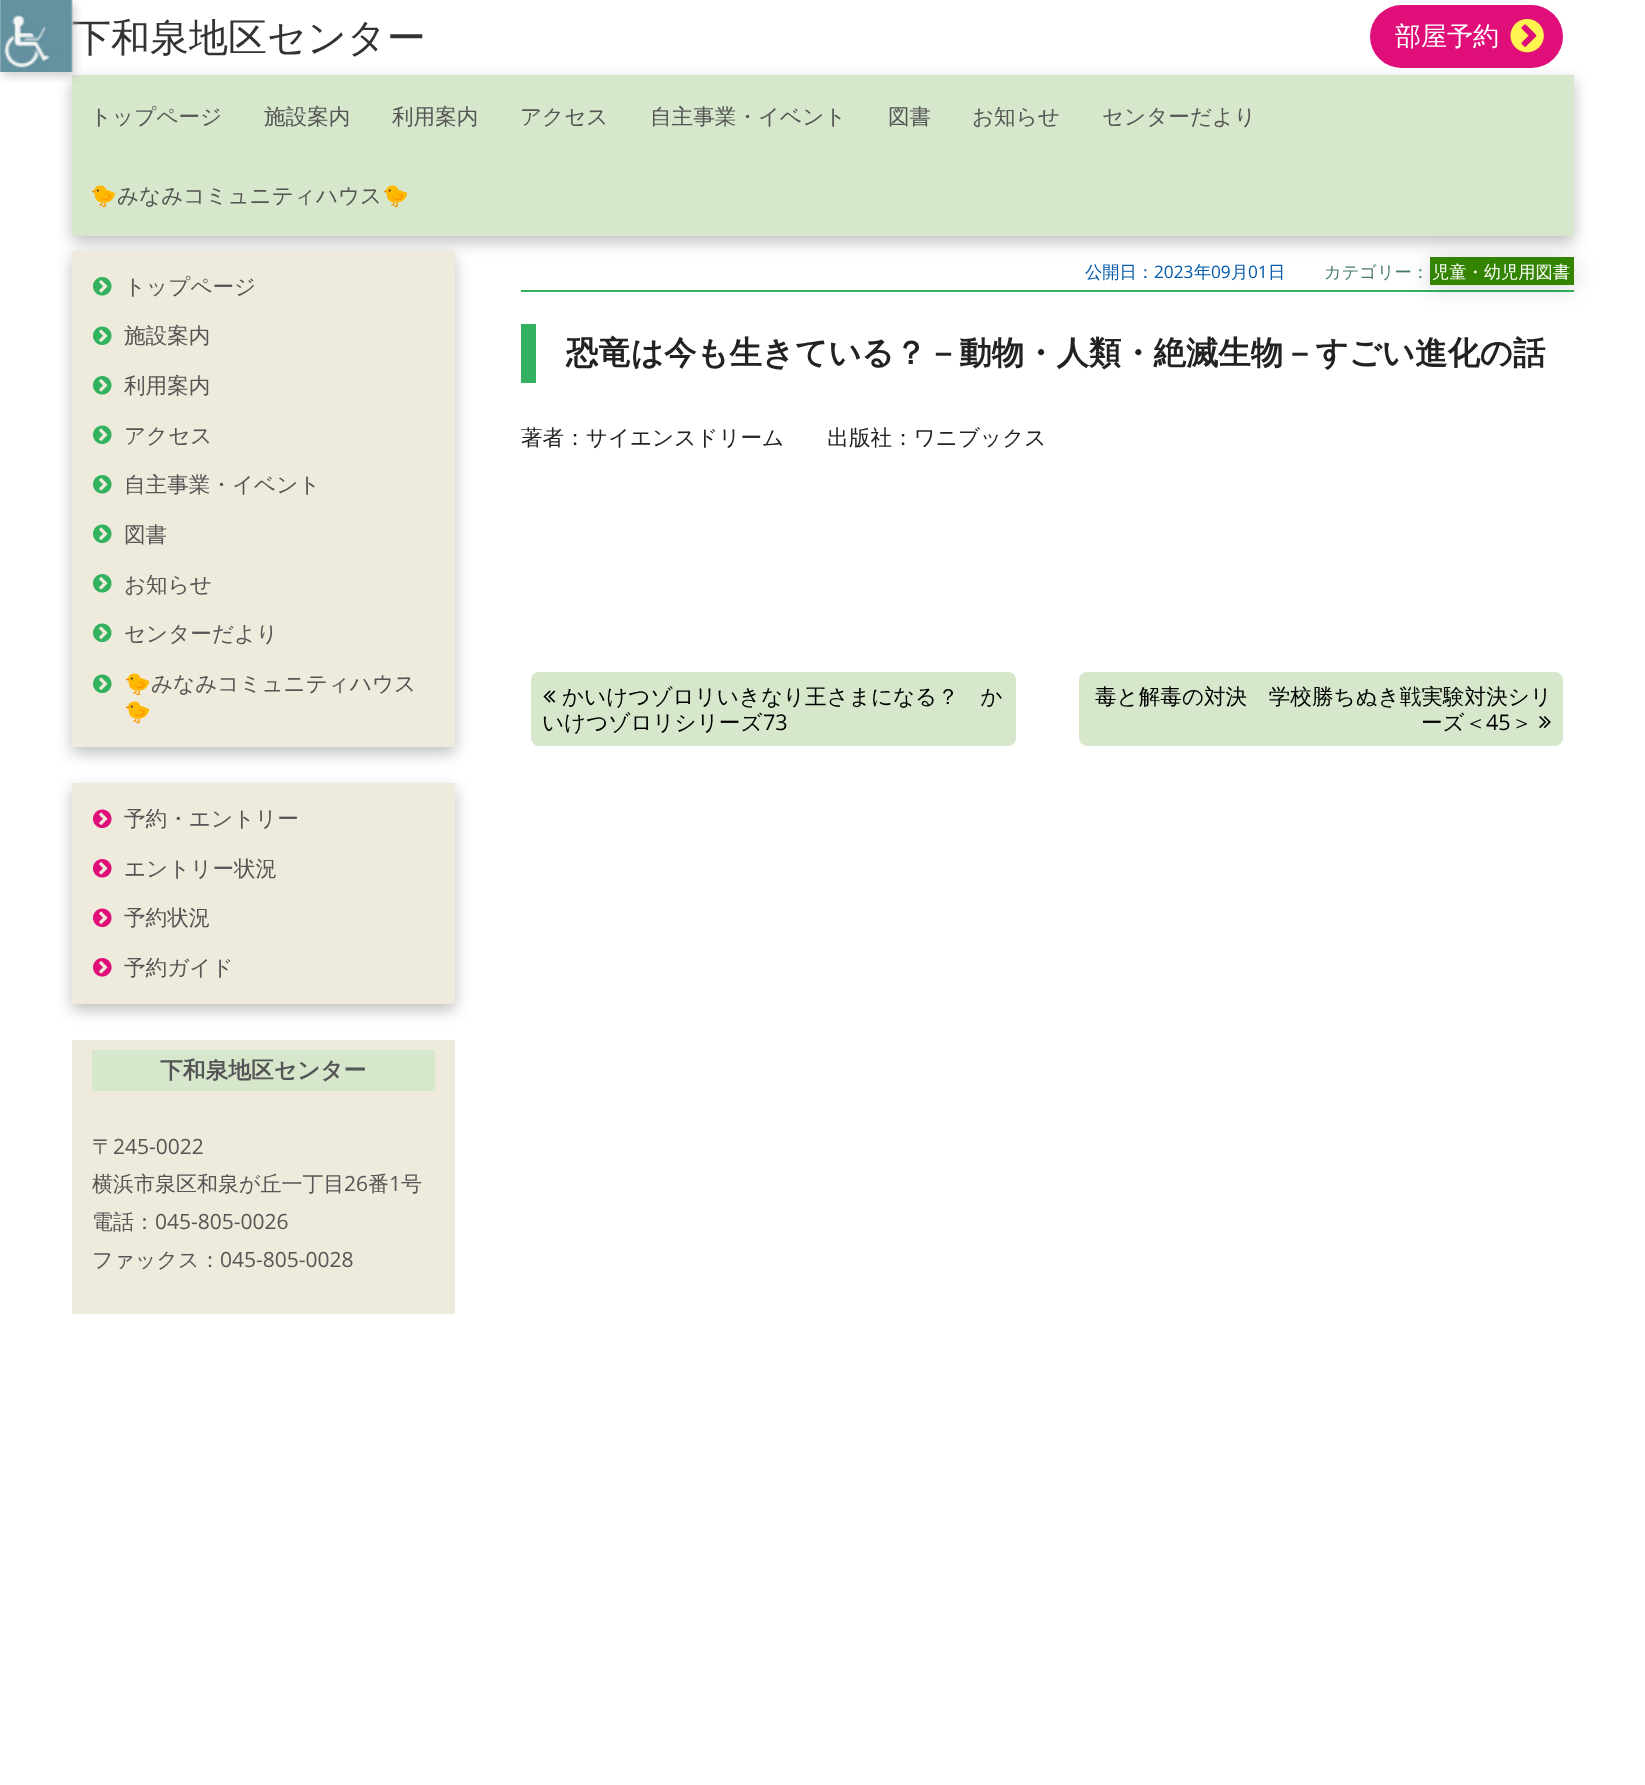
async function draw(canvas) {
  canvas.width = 1645
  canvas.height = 1785
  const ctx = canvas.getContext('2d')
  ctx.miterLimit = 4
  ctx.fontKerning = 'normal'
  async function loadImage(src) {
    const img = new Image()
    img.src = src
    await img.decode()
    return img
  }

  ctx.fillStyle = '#fff'
  ctx.fillRect(0, 0, 1645, 1785)
  ctx.font = '500 39px WenQuanYi Zen Hei'
  ctx.fillStyle = '#333'
  ctx.fillText('下和泉地区センター', 72, 51)
  ctx.fillStyle = '#32b25e'
  ctx.fillRect(521, 290, 1053, 2)
  ctx.fillStyle = '#00000029'
  ctx.filter = 'blur(11px)'
  ctx.beginPath()
  ctx.rect(1430, 260, 144, 28)
  ctx.fill()
  ctx.filter = 'none'
  ctx.fillStyle = '#338501'
  ctx.fillRect(1430, 257, 144, 28)
  ctx.fillStyle = '#00000040'
  ctx.filter = 'blur(7.5px)'
  ctx.beginPath()
  ctx.rect(72, 81, 1502, 161)
  ctx.fill()
  ctx.filter = 'none'
  ctx.fillStyle = '#d6e7cc'
  ctx.fillRect(72, 75, 1502, 161)
  ctx.drawImage(await loadImage('image0.png'), 0, 0, 82, 83)
  ctx.fillStyle = '#df0e79'
  ctx.beginPath()
  ctx.roundRect(1370, 5, 193, 63, 31.5)
  ctx.fill()
  ctx.font = '500 26px WenQuanYi Zen Hei'
  ctx.fillStyle = '#fff'
  ctx.fillText('部屋予約', 1395, 45)
  ctx.drawImage(await loadImage('image1.png'), 1510, 18, 34, 35)
  ctx.font = '500 21.6px WenQuanYi Zen Hei'
  ctx.fillStyle = '#555'
  ctx.fillText('トップページ', 90, 124)
  ctx.fillText('施設案内', 264, 124)
  ctx.fillText('利用案内', 392, 124)
  ctx.fillText('アクセス', 520, 124)
  ctx.fillText('自主事業・イベント', 650, 124)
  ctx.fillText('図書', 888, 124)
  ctx.fillText('お知らせ', 972, 124)
  ctx.fillText('センターだより', 1102, 124)
  ctx.font = '21.6px Noto Color Emoji'
  ctx.fillText('🐤', 90, 203)
  ctx.font = '500 21.6px WenQuanYi Zen Hei'
  ctx.fillText('みなみコミュニティハウス', 117, 203)
  ctx.font = '21.6px Noto Color Emoji'
  ctx.fillText('🐤', 382, 203)
  ctx.fillStyle = '#00000040'
  ctx.filter = 'blur(7.5px)'
  ctx.beginPath()
  ctx.rect(72, 257, 383, 496)
  ctx.fill()
  ctx.filter = 'none'
  ctx.fillStyle = '#efebdc'
  ctx.fillRect(72, 251, 383, 496)
  ctx.drawImage(await loadImage('image2.png'), 93, 277, 19, 19)
  ctx.font = '500 21.6px WenQuanYi Zen Hei'
  ctx.fillStyle = '#555'
  ctx.fillText('トップページ', 124, 294)
  ctx.drawImage(await loadImage('image3.png'), 93, 326, 19, 19)
  ctx.fillText('施設案内', 124, 343)
  ctx.drawImage(await loadImage('image2.png'), 93, 376, 19, 19)
  ctx.fillText('利用案内', 124, 393)
  ctx.drawImage(await loadImage('image3.png'), 93, 425, 19, 19)
  ctx.fillText('アクセス', 124, 443)
  ctx.drawImage(await loadImage('image2.png'), 93, 475, 19, 19)
  ctx.fillText('自主事業・イベント', 124, 492)
  ctx.drawImage(await loadImage('image3.png'), 93, 524, 19, 19)
  ctx.fillText('図書', 124, 542)
  ctx.drawImage(await loadImage('image2.png'), 93, 574, 19, 19)
  ctx.fillText('お知らせ', 124, 592)
  ctx.drawImage(await loadImage('image3.png'), 93, 623, 19, 19)
  ctx.fillText('センターだより', 124, 641)
  ctx.drawImage(await loadImage('image3.png'), 93, 674, 19, 19)
  ctx.font = '21.6px Noto Color Emoji'
  ctx.fillText('🐤', 124, 691)
  ctx.font = '500 21.6px WenQuanYi Zen Hei'
  ctx.fillText('みなみコミュニティハウス', 151, 691)
  ctx.font = '21.6px Noto Color Emoji'
  ctx.fillText('🐤', 124, 719)
  ctx.fillStyle = '#00000040'
  ctx.filter = 'blur(7.5px)'
  ctx.beginPath()
  ctx.rect(72, 789, 383, 221)
  ctx.fill()
  ctx.filter = 'none'
  ctx.fillStyle = '#efebdc'
  ctx.fillRect(72, 783, 383, 221)
  ctx.drawImage(await loadImage('image4.png'), 93, 809, 19, 19)
  ctx.font = '500 21.6px WenQuanYi Zen Hei'
  ctx.fillStyle = '#555'
  ctx.fillText('予約・エントリー', 124, 826)
  ctx.drawImage(await loadImage('image5.png'), 93, 859, 19, 19)
  ctx.fillText('エントリー状況', 124, 876)
  ctx.drawImage(await loadImage('image4.png'), 93, 908, 19, 19)
  ctx.fillText('予約状況', 124, 925)
  ctx.drawImage(await loadImage('image5.png'), 93, 958, 19, 19)
  ctx.fillText('予約ガイド', 124, 975)
  ctx.fillStyle = '#efebdc'
  ctx.fillRect(72, 1040, 383, 274)
  ctx.fillStyle = '#d6e7cc'
  ctx.fillRect(92, 1050, 343, 41)
  ctx.font = 'bold 22.75px WenQuanYi Zen Hei'
  ctx.fillStyle = '#555'
  ctx.fillText('下和泉地区センター', 160, 1078)
  ctx.font = '500 21px WenQuanYi Zen Hei'
  ctx.fillText('〒', 92, 1154)
  ctx.font = '21px Open Sans'
  ctx.fillText('245-0022', 113, 1154)
  ctx.font = '500 21px WenQuanYi Zen Hei'
  ctx.fillText('横浜市泉区和泉が丘一丁目', 92, 1191)
  ctx.font = '21px Open Sans'
  ctx.fillText('26', 344, 1191)
  ctx.font = '500 21px WenQuanYi Zen Hei'
  ctx.fillText('番', 368, 1191)
  ctx.font = '21px Open Sans'
  ctx.fillText('1', 389, 1191)
  ctx.font = '500 21px WenQuanYi Zen Hei'
  ctx.fillText('号', 401, 1191)
  ctx.fillText('電話：', 92, 1229)
  ctx.font = '21px Open Sans'
  ctx.fillText('045-805-0026', 155, 1229)
  ctx.font = '500 21px WenQuanYi Zen Hei'
  ctx.fillText('ファックス：', 92, 1267)
  ctx.font = '21px Open Sans'
  ctx.fillText('045-805-0028', 220, 1267)
  ctx.font = '500 17.25px WenQuanYi Zen Hei'
  ctx.fillStyle = '#025aaa'
  ctx.fillText('公開日：', 1085, 278)
  ctx.font = '17.25px Open Sans'
  ctx.fillText('2023', 1154, 278)
  ctx.font = '500 17.25px WenQuanYi Zen Hei'
  ctx.fillText('年', 1194, 278)
  ctx.font = '17.25px Open Sans'
  ctx.fillText('09', 1211, 278)
  ctx.font = '500 17.25px WenQuanYi Zen Hei'
  ctx.fillText('月', 1231, 278)
  ctx.font = '17.25px Open Sans'
  ctx.fillText('01', 1248, 278)
  ctx.font = '500 17.25px WenQuanYi Zen Hei'
  ctx.fillText('日', 1268, 278)
  ctx.fillStyle = '#477a71'
  ctx.fillText('カテゴリー：', 1324, 278)
  ctx.fillStyle = '#fff'
  ctx.fillText('児童・幼児用図書', 1432, 278)
  ctx.fillStyle = '#32b25e'
  ctx.fillRect(521, 324, 15, 59)
  ctx.font = 'bold 32.4px WenQuanYi Zen Hei'
  ctx.fillStyle = '#222'
  ctx.fillText('恐竜は今も生きている？－動物・人類・絶滅生物－すごい進化の話', 566, 364)
  ctx.font = '500 21.6px WenQuanYi Zen Hei'
  ctx.fillText('著者：サイエンスドリーム　　出版社：ワニブックス', 521, 445)
  ctx.fillStyle = '#d6e7cc'
  ctx.beginPath()
  ctx.roundRect(531, 672, 485, 74, 8)
  ctx.fill()
  ctx.drawImage(await loadImage('image6.png'), 543, 690, 13, 13)
  ctx.fillStyle = '#000'
  ctx.fillText('かいけつゾロリいきなり王さまになる？　か', 562, 704)
  ctx.fillText('いけつゾロリシリーズ', 542, 730)
  ctx.font = '21.6px Open Sans'
  ctx.fillText('73', 763, 730)
  ctx.fillStyle = '#d6e7cc'
  ctx.beginPath()
  ctx.roundRect(1079, 672, 484, 74, 8)
  ctx.fill()
  ctx.font = '500 21.6px WenQuanYi Zen Hei'
  ctx.fillStyle = '#000'
  ctx.fillText('毒と解毒の対決　学校勝ちぬき戦実験対決シリ', 1095, 704)
  ctx.fillText('ーズ＜', 1421, 730)
  ctx.font = '21.6px Open Sans'
  ctx.fillText('45', 1486, 730)
  ctx.font = '500 21.6px WenQuanYi Zen Hei'
  ctx.fillText('＞', 1511, 730)
  ctx.drawImage(await loadImage('image7.png'), 1539, 716, 12, 12)
}

draw(document.querySelector('canvas'))
